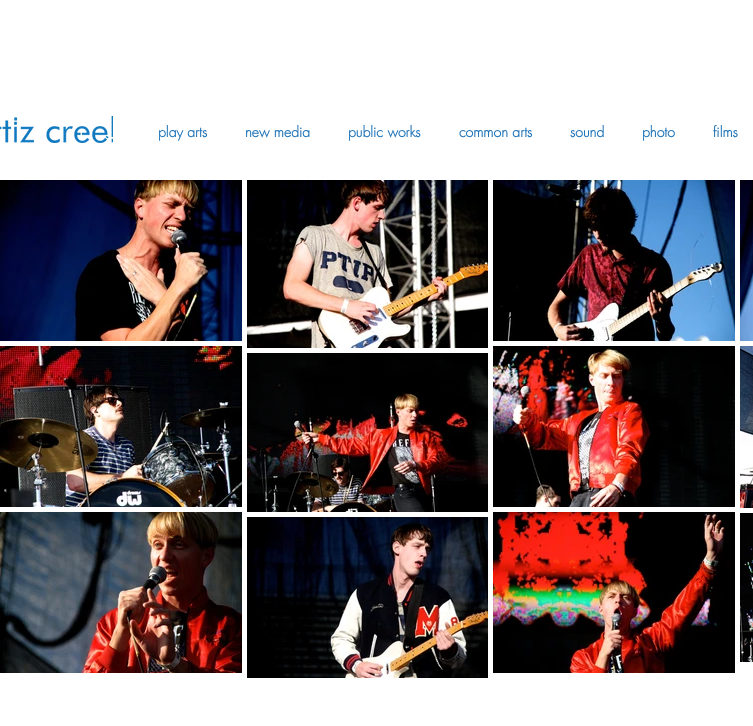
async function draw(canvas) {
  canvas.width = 753
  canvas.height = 726
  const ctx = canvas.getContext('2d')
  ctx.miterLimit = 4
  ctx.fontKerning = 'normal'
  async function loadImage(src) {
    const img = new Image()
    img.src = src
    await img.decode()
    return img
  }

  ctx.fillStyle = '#fff'
  ctx.fillRect(0, 0, 753, 726)
  ctx.drawImage(await loadImage('image0.png'), 0, 116, 113, 27)
  ctx.font = 'bold 14px futura'
  ctx.fillStyle = '#2175b9'
  ctx.fillText('play arts', 158, 137)
  ctx.fillText('new media', 245, 137)
  ctx.fillText('public works', 348, 137)
  ctx.fillText('common arts', 459, 137)
  ctx.fillText('sound', 570, 137)
  ctx.fillText('photo', 642, 137)
  ctx.fillText('films', 713, 137)
  ctx.drawImage(await loadImage('image1.png'), 0, 180, 242, 161)
  ctx.drawImage(await loadImage('image2.png'), 247, 180, 241, 168)
  ctx.drawImage(await loadImage('image3.png'), 493, 180, 242, 161)
  ctx.drawImage(await loadImage('image4.png'), 740, 180, 13, 161)
  ctx.drawImage(await loadImage('image5.png'), 0, 346, 242, 161)
  ctx.drawImage(await loadImage('image6.png'), 247, 353, 241, 159)
  ctx.drawImage(await loadImage('image7.png'), 493, 346, 242, 161)
  ctx.drawImage(await loadImage('image8.png'), 740, 346, 13, 162)
  ctx.drawImage(await loadImage('image9.png'), 0, 512, 242, 161)
  ctx.drawImage(await loadImage('image10.png'), 247, 517, 241, 161)
  ctx.drawImage(await loadImage('image11.png'), 493, 512, 242, 161)
  ctx.drawImage(await loadImage('image12.png'), 740, 513, 13, 149)
}

draw(document.querySelector('canvas'))
